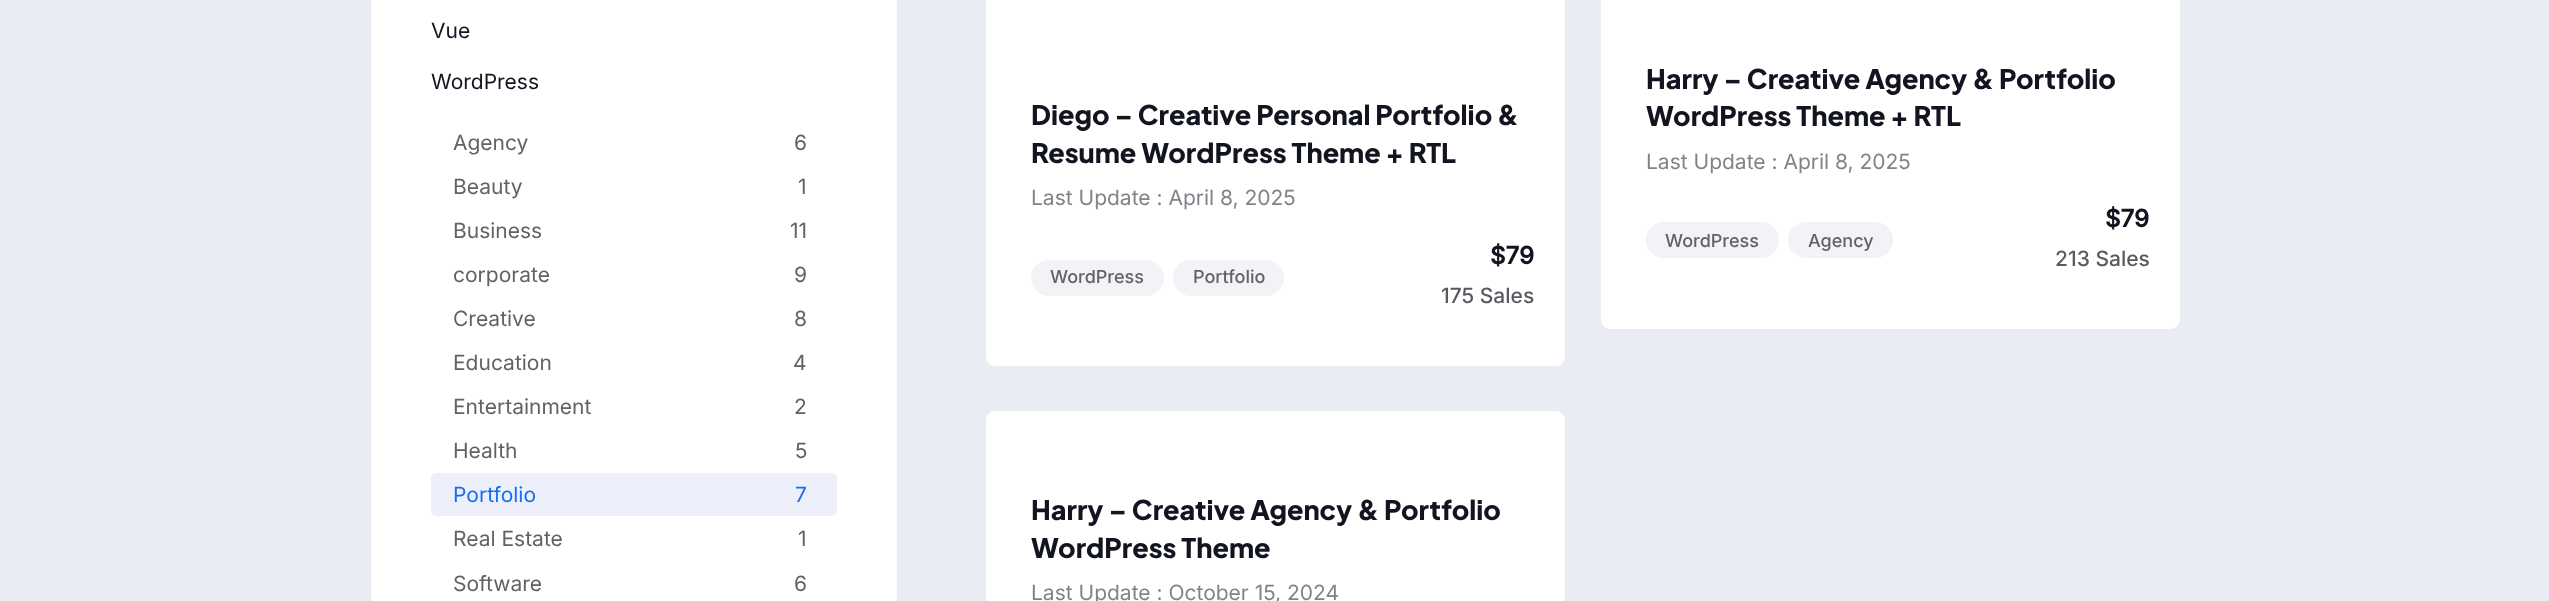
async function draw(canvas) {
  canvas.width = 2549
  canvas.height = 601
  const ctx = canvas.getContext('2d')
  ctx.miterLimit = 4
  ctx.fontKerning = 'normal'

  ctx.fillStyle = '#eaecf3'
  ctx.fillRect(0, 0, 2549, 601)
  ctx.fillStyle = '#fff'
  ctx.fillRect(371, 0, 526, 601)
  ctx.font = '21px Inter'
  ctx.fillStyle = '#121420'
  ctx.fillText('Vue', 431, 38)
  ctx.fillText('WordPress', 431, 89)
  ctx.fillStyle = '#616266'
  ctx.fillText('Agency', 453, 150)
  ctx.fillText('6', 794, 150)
  ctx.fillText('Beauty', 453, 194)
  ctx.fillText('1', 798, 194)
  ctx.fillText('Business', 453, 238)
  ctx.fillText('11', 790, 238)
  ctx.fillText('corporate', 453, 282)
  ctx.fillText('9', 794, 282)
  ctx.fillText('Creative', 453, 326)
  ctx.fillText('8', 794, 326)
  ctx.fillText('Education', 453, 370)
  ctx.fillText('4', 793, 370)
  ctx.fillText('Entertainment', 453, 414)
  ctx.fillText('2', 794, 414)
  ctx.fillText('Health', 453, 458)
  ctx.fillText('5', 795, 458)
  ctx.fillStyle = '#edf0fb'
  ctx.beginPath()
  ctx.roundRect(431, 473, 406, 43, 5)
  ctx.fill()
  ctx.fillStyle = '#156df2'
  ctx.fillText('Portfolio', 453, 502)
  ctx.fillText('7', 795, 502)
  ctx.fillStyle = '#616266'
  ctx.fillText('Real Estate', 453, 546)
  ctx.fillText('1', 798, 546)
  ctx.fillText('Software', 453, 591)
  ctx.fillText('6', 794, 591)
  ctx.fillStyle = '#fff'
  ctx.beginPath()
  ctx.roundRect(986, -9, 579, 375, 9)
  ctx.fill()
  ctx.font = '800 27px Plus Jakarta Sans'
  ctx.fillStyle = '#121420'
  ctx.fillText('Diego – Creative Personal Portfolio &', 1031, 125)
  ctx.fillText('Resume WordPress Theme + RTL', 1031, 163)
  ctx.font = '21px Inter'
  ctx.fillStyle = '#818388'
  ctx.fillText('Last Update : April 8, 2025', 1031, 205)
  ctx.fillStyle = '#f1f3f6'
  ctx.beginPath()
  ctx.roundRect(1031, 260, 133, 36, 18)
  ctx.fill()
  ctx.font = '500 18px Inter'
  ctx.fillStyle = '#616266'
  ctx.fillText('WordPress', 1050, 283)
  ctx.fillStyle = '#f1f3f6'
  ctx.beginPath()
  ctx.roundRect(1173, 260, 111, 36, 18)
  ctx.fill()
  ctx.fillStyle = '#616266'
  ctx.fillText('Portfolio', 1193, 283)
  ctx.font = 'bold 24px Inter'
  ctx.fillStyle = '#121420'
  ctx.fillText('$79', 1490, 264)
  ctx.font = '500 21px Inter'
  ctx.fillStyle = '#595a60'
  ctx.fillText('175 Sales', 1441, 303)
  ctx.fillStyle = '#fff'
  ctx.beginPath()
  ctx.roundRect(1601, -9, 579, 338, 9)
  ctx.fill()
  ctx.font = '800 27px Plus Jakarta Sans'
  ctx.fillStyle = '#121420'
  ctx.fillText('Harry – Creative Agency & Portfolio', 1646, 89)
  ctx.fillText('WordPress Theme + RTL', 1646, 126)
  ctx.font = '21px Inter'
  ctx.fillStyle = '#818388'
  ctx.fillText('Last Update : April 8, 2025', 1646, 169)
  ctx.fillStyle = '#f1f3f6'
  ctx.beginPath()
  ctx.roundRect(1646, 222, 133, 36, 18)
  ctx.fill()
  ctx.font = '500 18px Inter'
  ctx.fillStyle = '#616266'
  ctx.fillText('WordPress', 1665, 247)
  ctx.fillStyle = '#f1f3f6'
  ctx.beginPath()
  ctx.roundRect(1788, 222, 105, 36, 18)
  ctx.fill()
  ctx.fillStyle = '#616266'
  ctx.fillText('Agency', 1808, 247)
  ctx.font = 'bold 24px Inter'
  ctx.fillStyle = '#121420'
  ctx.fillText('$79', 2105, 227)
  ctx.font = '500 21px Inter'
  ctx.fillStyle = '#595a60'
  ctx.fillText('213 Sales', 2055, 266)
  ctx.fillStyle = '#fff'
  ctx.beginPath()
  ctx.roundRect(986, 411, 579, 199, 9)
  ctx.fill()
  ctx.font = '800 27px Plus Jakarta Sans'
  ctx.fillStyle = '#121420'
  ctx.fillText('Harry – Creative Agency & Portfolio', 1031, 520)
  ctx.fillText('WordPress Theme', 1031, 558)
  ctx.font = '21px Inter'
  ctx.fillStyle = '#818388'
  ctx.fillText('Last Update : October 15, 2024', 1031, 600)
}

draw(document.querySelector('canvas'))
